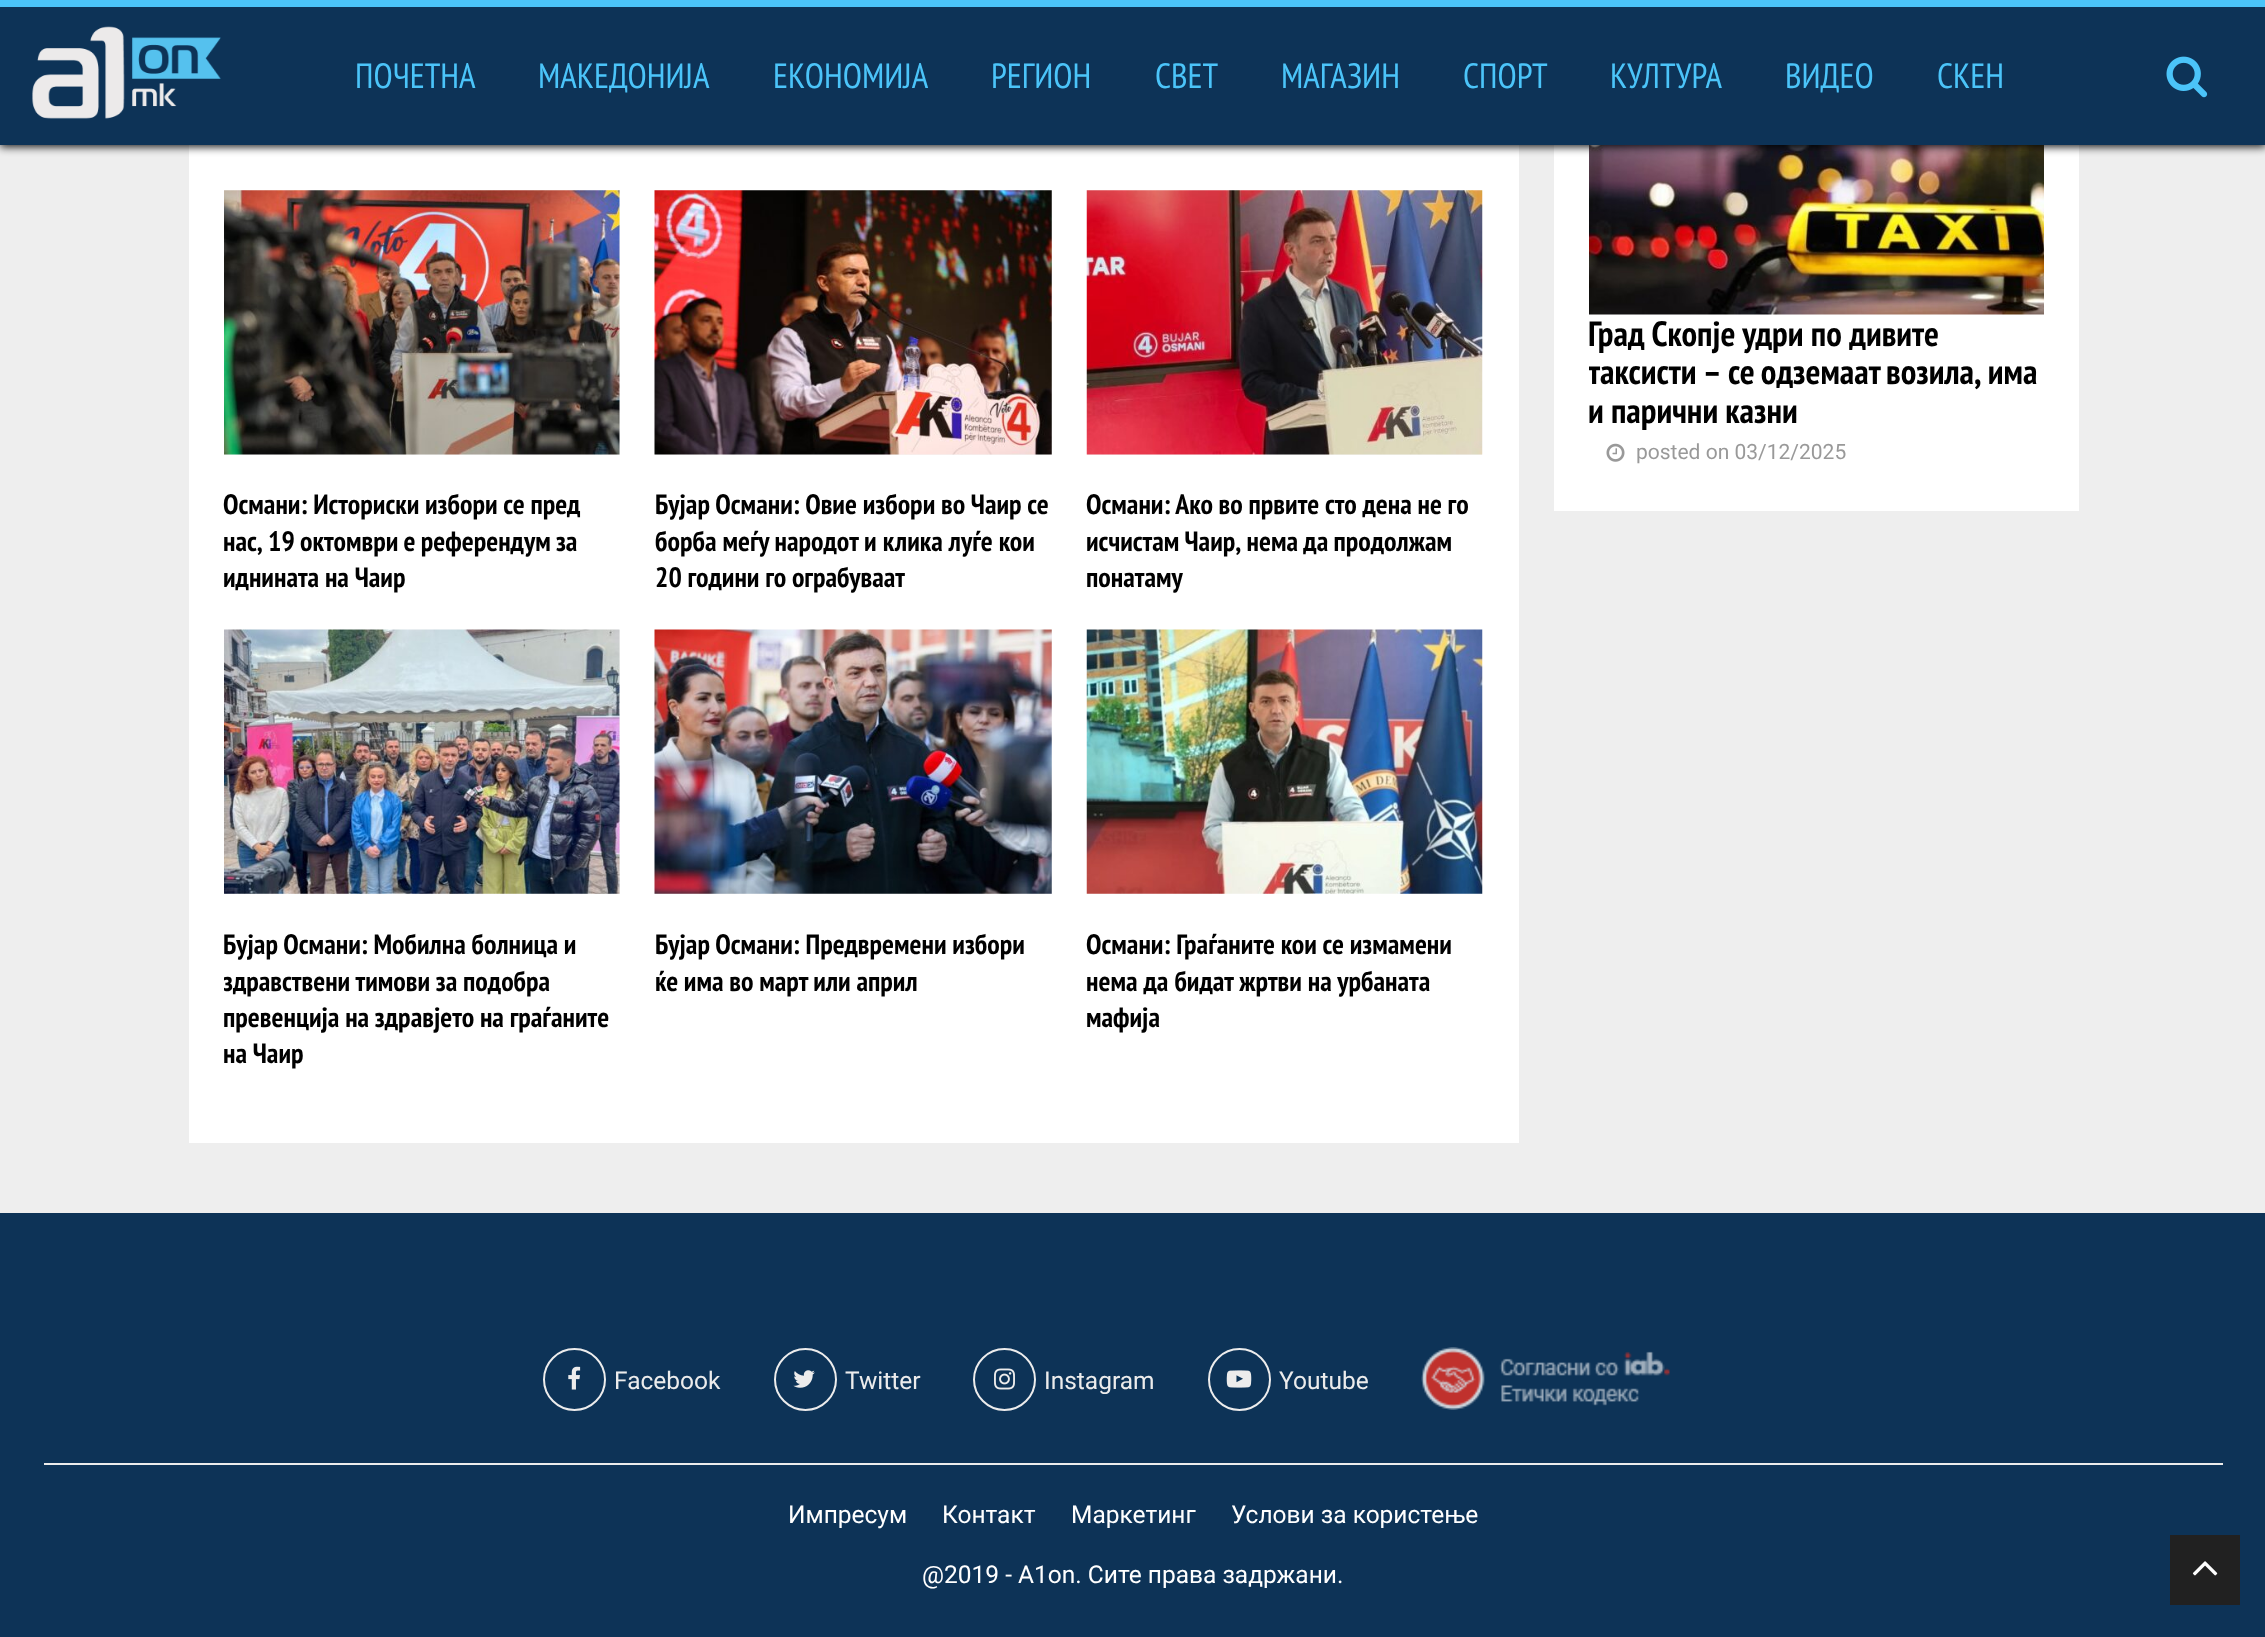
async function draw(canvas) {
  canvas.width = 2265
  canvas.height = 1637
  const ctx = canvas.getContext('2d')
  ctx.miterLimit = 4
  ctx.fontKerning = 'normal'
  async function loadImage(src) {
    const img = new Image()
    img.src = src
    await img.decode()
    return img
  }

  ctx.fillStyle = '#eee'
  ctx.fillRect(0, 0, 2265, 1637)
  ctx.fillStyle = '#fff'
  ctx.fillRect(1554, 145, 525, 366)
  ctx.drawImage(await loadImage('image2.png'), 1589, 145, 455, 170)
  ctx.fillRect(189, 145, 1330, 998)
  ctx.fillStyle = '#000000e0'
  ctx.filter = 'blur(4.5px)'
  ctx.beginPath()
  ctx.rect(0, 7, 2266, 140)
  ctx.fill()
  ctx.filter = 'none'
  ctx.fillStyle = '#0d3357'
  ctx.fillRect(0, 7, 2265, 138)
  ctx.fillStyle = '#4bc4f9'
  ctx.fillRect(0, 0, 2265, 7)
  ctx.drawImage(await loadImage('image0.png'), 32, 26, 189, 93)
  ctx.font = '35px PT Sans Narrow'
  ctx.fillText('ПОЧЕТНА', 355, 88)
  ctx.fillText('МАКЕДОНИЈА', 538, 88)
  ctx.fillText('ЕКОНОМИЈА', 773, 88)
  ctx.fillText('РЕГИОН', 991, 88)
  ctx.fillText('СВЕТ', 1155, 88)
  ctx.fillText('МАГАЗИН', 1281, 88)
  ctx.fillText('СПОРТ', 1463, 88)
  ctx.fillText('КУЛТУРА', 1610, 88)
  ctx.fillText('ВИДЕО', 1785, 88)
  ctx.fillText('СКЕН', 1937, 88)
  ctx.drawImage(await loadImage('image1.png'), 2166, 56, 42, 42)
  ctx.wordSpacing = '0.25px'
  ctx.font = 'bold 35px PT Sans Narrow'
  ctx.fillStyle = '#000'
  ctx.fillText('Град Скопје удри по дивите', 1588, 346)
  ctx.save()
  ctx.beginPath()
  ctx.rect(1589, 30, 455, 446)
  ctx.clip()
  ctx.wordSpacing = '-1px'
  ctx.fillText('таксисти – се одземаат возила, има', 1588, 384)
  ctx.restore()
  ctx.wordSpacing = '0px'
  ctx.fillText('и парични казни', 1588, 423)
  ctx.drawImage(await loadImage('image3.png'), 1606, 443, 19, 19)
  ctx.font = '21px Roboto'
  ctx.fillStyle = '#999'
  ctx.fillText('posted on 03/12/2025', 1636, 459)
  ctx.fillStyle = '#f5f5f5'
  ctx.fillRect(224, 191, 396, 264)
  ctx.drawImage(await loadImage('image4.png'), 224, 190, 396, 265)
  ctx.font = 'bold 28px PT Sans Narrow'
  ctx.fillStyle = '#000'
  ctx.fillText('Османи: Историски избори се пред', 223, 514)
  ctx.wordSpacing = '-0.5px'
  ctx.fillText('нас, 19 октомври е референдум за', 223, 551)
  ctx.wordSpacing = '0px'
  ctx.fillText('иднината на Чаир', 223, 587)
  ctx.fillStyle = '#f5f5f5'
  ctx.fillRect(655, 191, 397, 264)
  ctx.drawImage(await loadImage('image5.png'), 654, 190, 398, 265)
  ctx.fillStyle = '#000'
  ctx.fillText('Бујар Османи: Овие избори во Чаир се', 655, 514)
  ctx.wordSpacing = '0.25px'
  ctx.fillText('борба меѓу народот и клика луѓе кои', 655, 551)
  ctx.wordSpacing = '0px'
  ctx.fillText('20 години го ограбуваат', 655, 587)
  ctx.fillStyle = '#f5f5f5'
  ctx.fillRect(1087, 454, 395, 1)
  ctx.drawImage(await loadImage('image6.png'), 1086, 190, 397, 265)
  ctx.fillStyle = '#000'
  ctx.fillText('Османи: Ако во првите сто дена не го', 1086, 514)
  ctx.wordSpacing = '-0.5px'
  ctx.fillText('исчистам Чаир, нема да продолжам', 1086, 551)
  ctx.wordSpacing = '0px'
  ctx.fillText('понатаму', 1086, 587)
  ctx.fillStyle = '#f5f5f5'
  ctx.fillRect(224, 630, 396, 264)
  ctx.drawImage(await loadImage('image7.png'), 224, 629, 396, 265)
  ctx.fillStyle = '#000'
  ctx.fillText('Бујар Османи: Мобилна болница и', 223, 954)
  ctx.save()
  ctx.beginPath()
  ctx.rect(224, 77, 1260, 1031)
  ctx.clip()
  ctx.fillText('здравствени тимови за подобра', 223, 991)
  ctx.restore()
  ctx.fillText('превенција на здравјето на граѓаните', 223, 1027)
  ctx.fillText('на Чаир', 223, 1063)
  ctx.fillStyle = '#f5f5f5'
  ctx.fillRect(655, 630, 397, 264)
  ctx.drawImage(await loadImage('image8.png'), 654, 629, 398, 265)
  ctx.fillStyle = '#000'
  ctx.fillText('Бујар Османи: Предвремени избори', 655, 954)
  ctx.fillText('ќе има во март или април', 655, 991)
  ctx.drawImage(await loadImage('image9.png'), 1086, 629, 397, 265)
  ctx.fillText('Османи: Граѓаните кои се измамени', 1086, 954)
  ctx.wordSpacing = '0.25px'
  ctx.fillText('нема да бидат жртви на урбаната', 1086, 991)
  ctx.wordSpacing = '0px'
  ctx.fillText('мафија', 1086, 1027)
  ctx.fillStyle = '#0d3357'
  ctx.fillRect(0, 1213, 2265, 424)
  ctx.fillStyle = '#ececec'
  ctx.fillRect(44, 1463, 2179, 2)
  ctx.beginPath()
  ctx.arc(574.5, 1379.5, 30.5, 0, 2 * Math.PI)
  ctx.strokeStyle = '#ececec'
  ctx.lineWidth = 2
  ctx.stroke()
  ctx.drawImage(await loadImage('image10.png'), 568, 1366, 13, 24)
  ctx.font = '24.5px Roboto'
  ctx.fillText('Facebook', 614, 1389)
  ctx.beginPath()
  ctx.arc(805.5, 1379.5, 30.5, 0, 2 * Math.PI)
  ctx.stroke()
  ctx.drawImage(await loadImage('image11.png'), 793, 1370, 22, 18)
  ctx.fillText('Twitter', 845, 1389)
  ctx.beginPath()
  ctx.arc(1004.5, 1379.5, 30.5, 0, 2 * Math.PI)
  ctx.stroke()
  ctx.drawImage(await loadImage('image12.png'), 994, 1368, 21, 22)
  ctx.fillText('Instagram', 1044, 1389)
  ctx.beginPath()
  ctx.arc(1239.5, 1379.5, 30.5, 0, 2 * Math.PI)
  ctx.stroke()
  ctx.drawImage(await loadImage('image13.png'), 1226, 1370, 26, 18)
  ctx.fillText('Youtube', 1279, 1389)
  ctx.drawImage(await loadImage('image14.png'), 1421, 1347, 249, 63)
  ctx.fillStyle = '#fff'
  ctx.fillText('Импресум', 788, 1523)
  ctx.fillText('Контакт', 942, 1523)
  ctx.fillText('Маркетинг', 1071, 1523)
  ctx.fillText('Услови за користење', 1231, 1523)
  ctx.fillText('@2019 - A1on. Сите права задржани.', 922, 1583)
  ctx.fillStyle = '#212121'
  ctx.fillRect(2170, 1535, 70, 70)
  ctx.drawImage(await loadImage('image15.png'), 2192, 1561, 26, 15)
}

draw(document.querySelector('canvas'))
